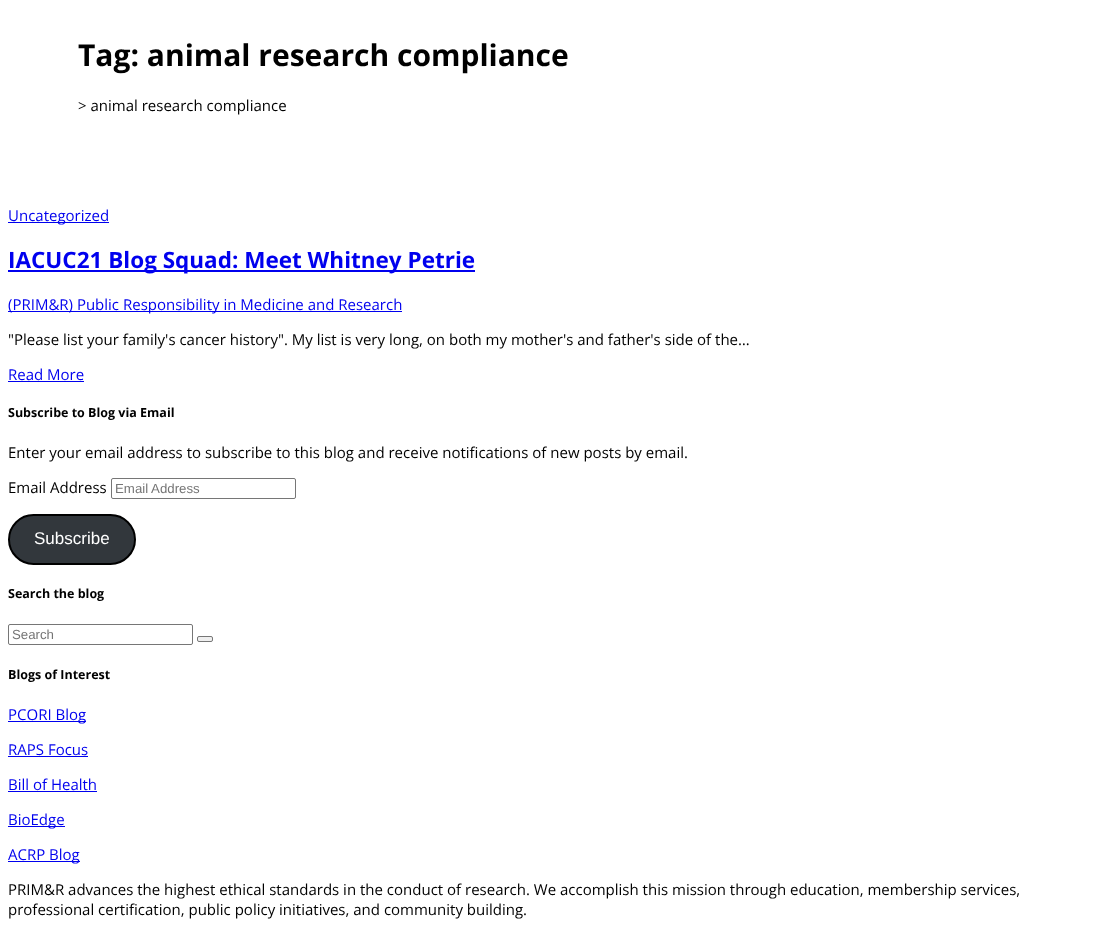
async function draw(canvas) {
  canvas.width = 1096
  canvas.height = 934
  const ctx = canvas.getContext('2d')
  ctx.miterLimit = 4
  ctx.fontKerning = 'normal'

  ctx.fillStyle = '#fff'
  ctx.fillRect(0, 0, 1096, 934)
  ctx.font = 'bold 30px Open Sans'
  ctx.fillStyle = '#000'
  ctx.fillText('Tag: animal research compliance', 78, 66)
  ctx.font = '15px Open Sans'
  ctx.fillText('> animal research compliance', 78, 111)
  ctx.fillStyle = '#00e'
  ctx.fillRect(8, 222, 101, 1)
  ctx.fillText('Uncategorized', 8, 221)
  ctx.fillRect(8, 270, 467, 2)
  ctx.font = 'bold 22.5px Open Sans'
  ctx.fillText('IACUC21 Blog Squad: Meet Whitney Petrie', 8, 268)
  ctx.fillRect(8, 311, 394, 1)
  ctx.font = '15px Open Sans'
  ctx.fillText('(PRIM&R) Public Responsibility in Medicine and Research', 8, 310)
  ctx.fillStyle = '#000'
  ctx.fillText('"Please list your family\'s cancer history". My list is very long, on both my mother\'s and father\'s side of the…', 8, 345)
  ctx.fillStyle = '#00e'
  ctx.fillText('Read More', 8, 380)
  ctx.fillRect(8, 381, 76, 1)
  ctx.font = 'bold 12.5px Open Sans'
  ctx.fillStyle = '#000'
  ctx.fillText('Subscribe to Blog via Email', 8, 417)
  ctx.font = '15px Open Sans'
  ctx.fillText('Enter your email address to subscribe to this blog and receive notifications of new posts by email.', 8, 458)
  ctx.fillText('Email Address', 8, 493)
  ctx.beginPath()
  ctx.roundRect(111.5, 478.5, 184, 20, 1.5)
  ctx.strokeStyle = '#767676'
  ctx.stroke()
  ctx.font = '13.25px Liberation Sans'
  ctx.fillStyle = '#757575'
  ctx.fillText('Email Address', 115, 493)
  ctx.fillStyle = '#32373c'
  ctx.beginPath()
  ctx.roundRect(9, 515, 126, 49, 24.5)
  ctx.fill()
  ctx.strokeStyle = '#000'
  ctx.lineWidth = 2
  ctx.stroke()
  ctx.font = '17px Liberation Sans'
  ctx.fillStyle = '#fff'
  ctx.fillText('Subscribe', 34, 544)
  ctx.font = 'bold 12.5px Open Sans'
  ctx.fillStyle = '#000'
  ctx.fillText('Search the blog', 8, 598)
  ctx.beginPath()
  ctx.roundRect(8.5, 624.5, 184, 20, 1.5)
  ctx.strokeStyle = '#767676'
  ctx.lineWidth = 1
  ctx.stroke()
  ctx.font = '13.25px Liberation Sans'
  ctx.fillStyle = '#757575'
  ctx.fillText('Search', 12, 639)
  ctx.fillStyle = '#efefef'
  ctx.beginPath()
  ctx.roundRect(197.5, 636.5, 15, 5, 1.5)
  ctx.fill()
  ctx.stroke()
  ctx.font = 'bold 12.5px Open Sans'
  ctx.fillStyle = '#000'
  ctx.fillText('Blogs of Interest', 8, 679)
  ctx.fillStyle = '#00e'
  ctx.fillRect(8, 721, 78, 1)
  ctx.font = '15px Open Sans'
  ctx.fillText('PCORI Blog', 8, 720)
  ctx.fillText('RAPS Focus', 8, 755)
  ctx.fillRect(8, 756, 80, 1)
  ctx.fillText('Bill of Health', 8, 790)
  ctx.fillRect(8, 791, 89, 1)
  ctx.fillRect(8, 826, 57, 1)
  ctx.fillText('BioEdge', 8, 825)
  ctx.fillRect(8, 861, 72, 1)
  ctx.fillText('ACRP Blog', 8, 860)
  ctx.fillStyle = '#000'
  ctx.fillText('PRIM&R advances the highest ethical standards in the conduct of research. We accomplish this mission through education, membership services,', 8, 895)
  ctx.fillText('professional certification, public policy initiatives, and community building.', 8, 915)
}

draw(document.querySelector('canvas'))
